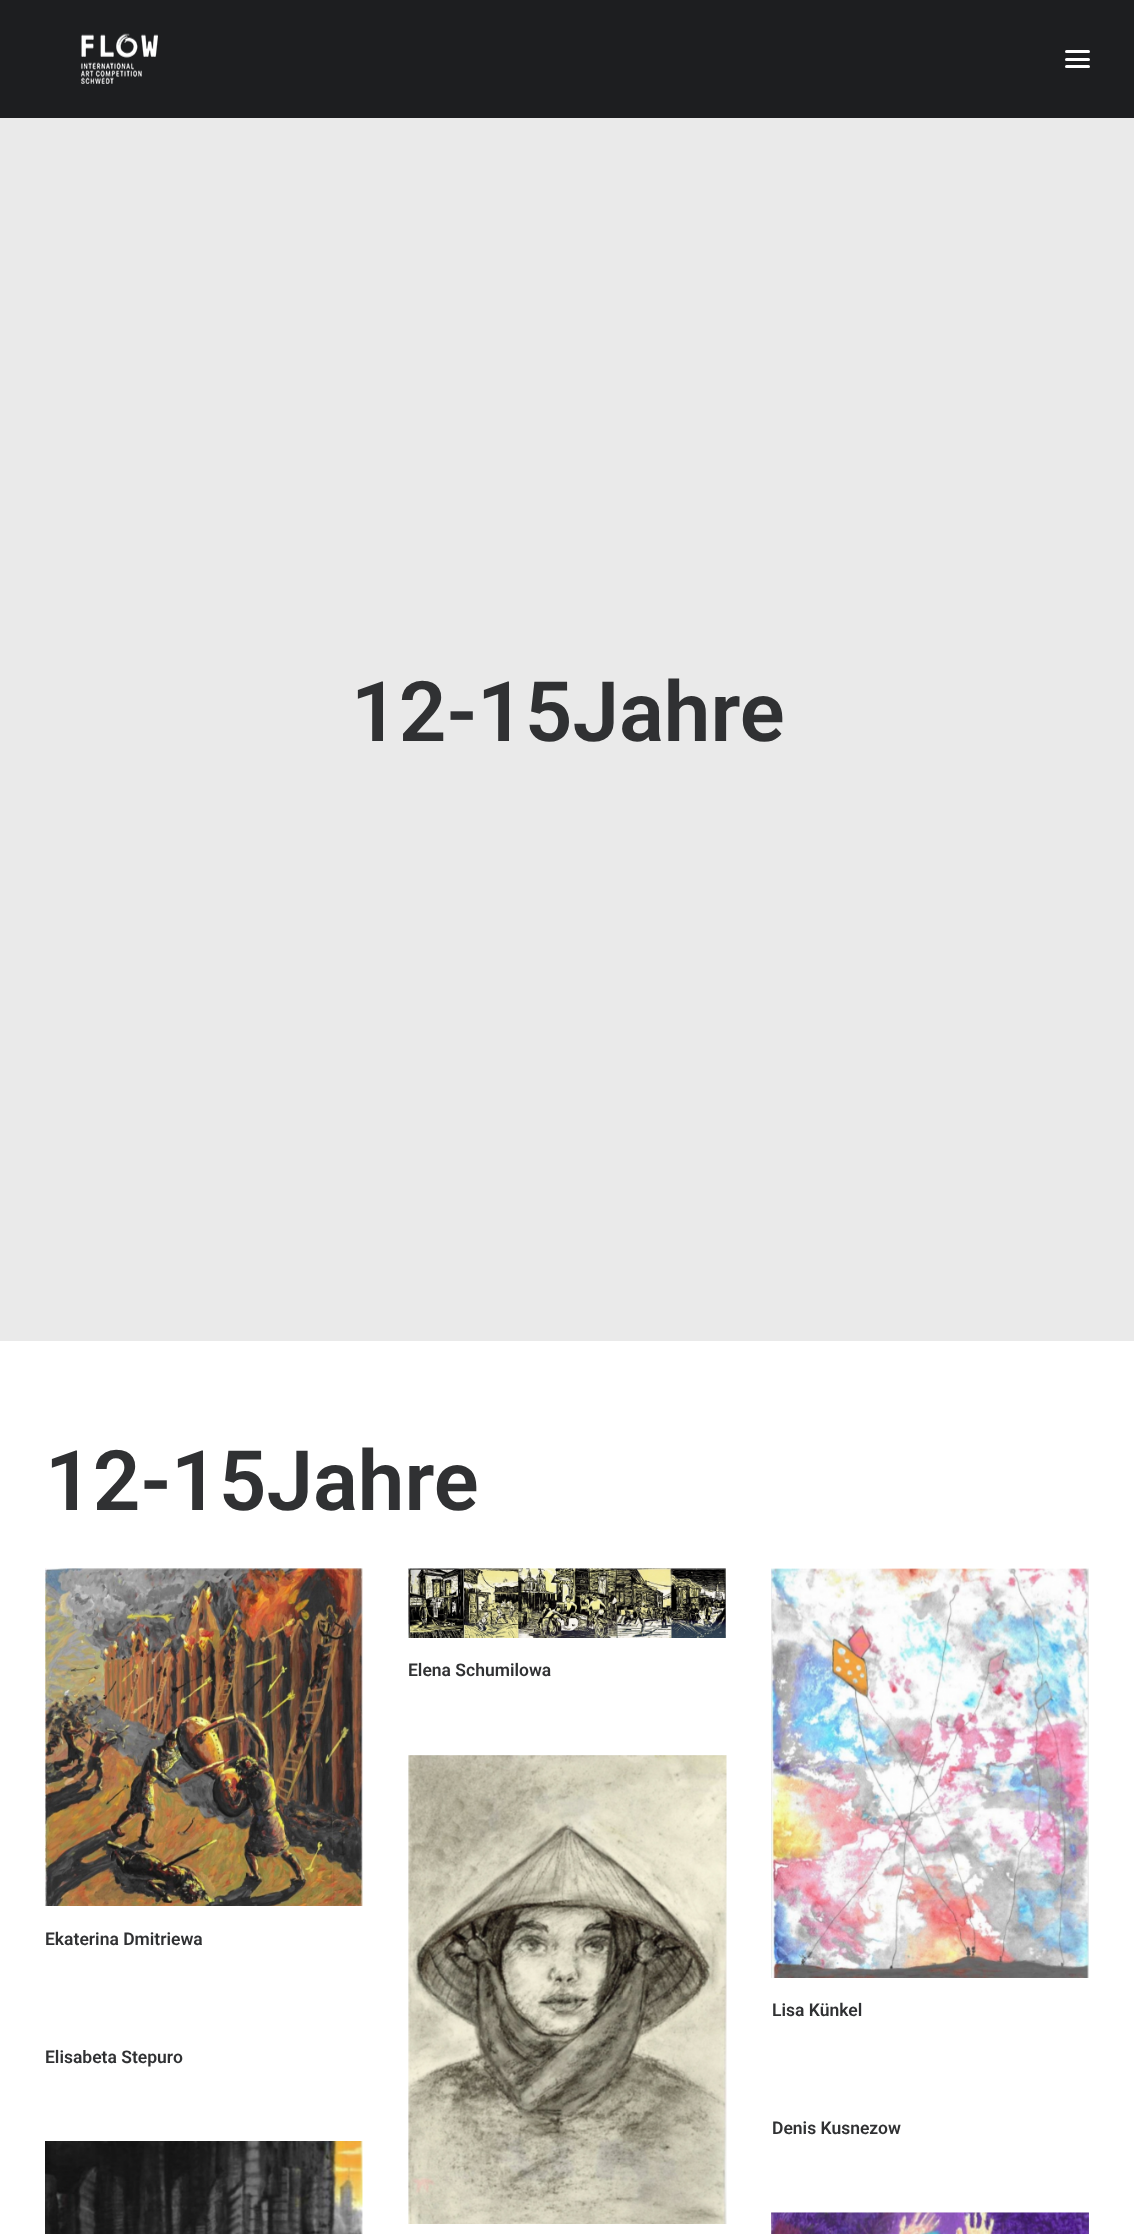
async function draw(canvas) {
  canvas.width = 1134
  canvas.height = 2234
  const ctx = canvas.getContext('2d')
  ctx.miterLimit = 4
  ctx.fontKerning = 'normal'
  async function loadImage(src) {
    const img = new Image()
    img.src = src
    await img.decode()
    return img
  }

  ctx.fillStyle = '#eaeaea'
  ctx.fillRect(0, 0, 1134, 2234)
  ctx.fillStyle = '#1d1e20'
  ctx.fillRect(0, 0, 1134, 118)
  ctx.drawImage(await loadImage('image0.png'), 81, 33, 77, 51)
  ctx.fillStyle = '#fff'
  ctx.beginPath()
  ctx.roundRect(1065, 58, 25, 3, 1.5)
  ctx.fill()
  ctx.beginPath()
  ctx.roundRect(1065, 50, 25, 3, 1.5)
  ctx.fill()
  ctx.beginPath()
  ctx.roundRect(1065, 65, 25, 3, 1.5)
  ctx.fill()
  ctx.font = '600 83.5px Roboto'
  ctx.fillStyle = '#303133'
  ctx.fillText('12-15Jahre', 351, 741)
  ctx.fillStyle = '#fff'
  ctx.fillRect(0, 1341, 1134, 893)
  ctx.fillStyle = '#303133'
  ctx.fillText('12-15Jahre', 45, 1510)
  ctx.drawImage(await loadImage('image1.png'), 408, 1568, 318, 70)
  ctx.font = '600 17.5px Roboto'
  ctx.fillText('Elena Schumilowa', 408, 1676)
  ctx.drawImage(await loadImage('image2.png'), 45, 1568, 318, 338)
  ctx.fillText('Ekaterina Dmitriewa', 45, 1945)
  ctx.drawImage(await loadImage('image3.png'), 408, 1755, 319, 469)
  ctx.drawImage(await loadImage('image4.png'), 771, 1568, 318, 410)
  ctx.fillText('Lisa Künkel', 772, 2016)
  ctx.fillText('Elisabeta Stepuro', 45, 2063)
  ctx.fillText('Denis Kusnezow', 772, 2134)
  ctx.drawImage(await loadImage('image5.png'), 45, 2141, 318, 93)
  ctx.drawImage(await loadImage('image6.png'), 771, 2212, 318, 22)
}

draw(document.querySelector('canvas'))
